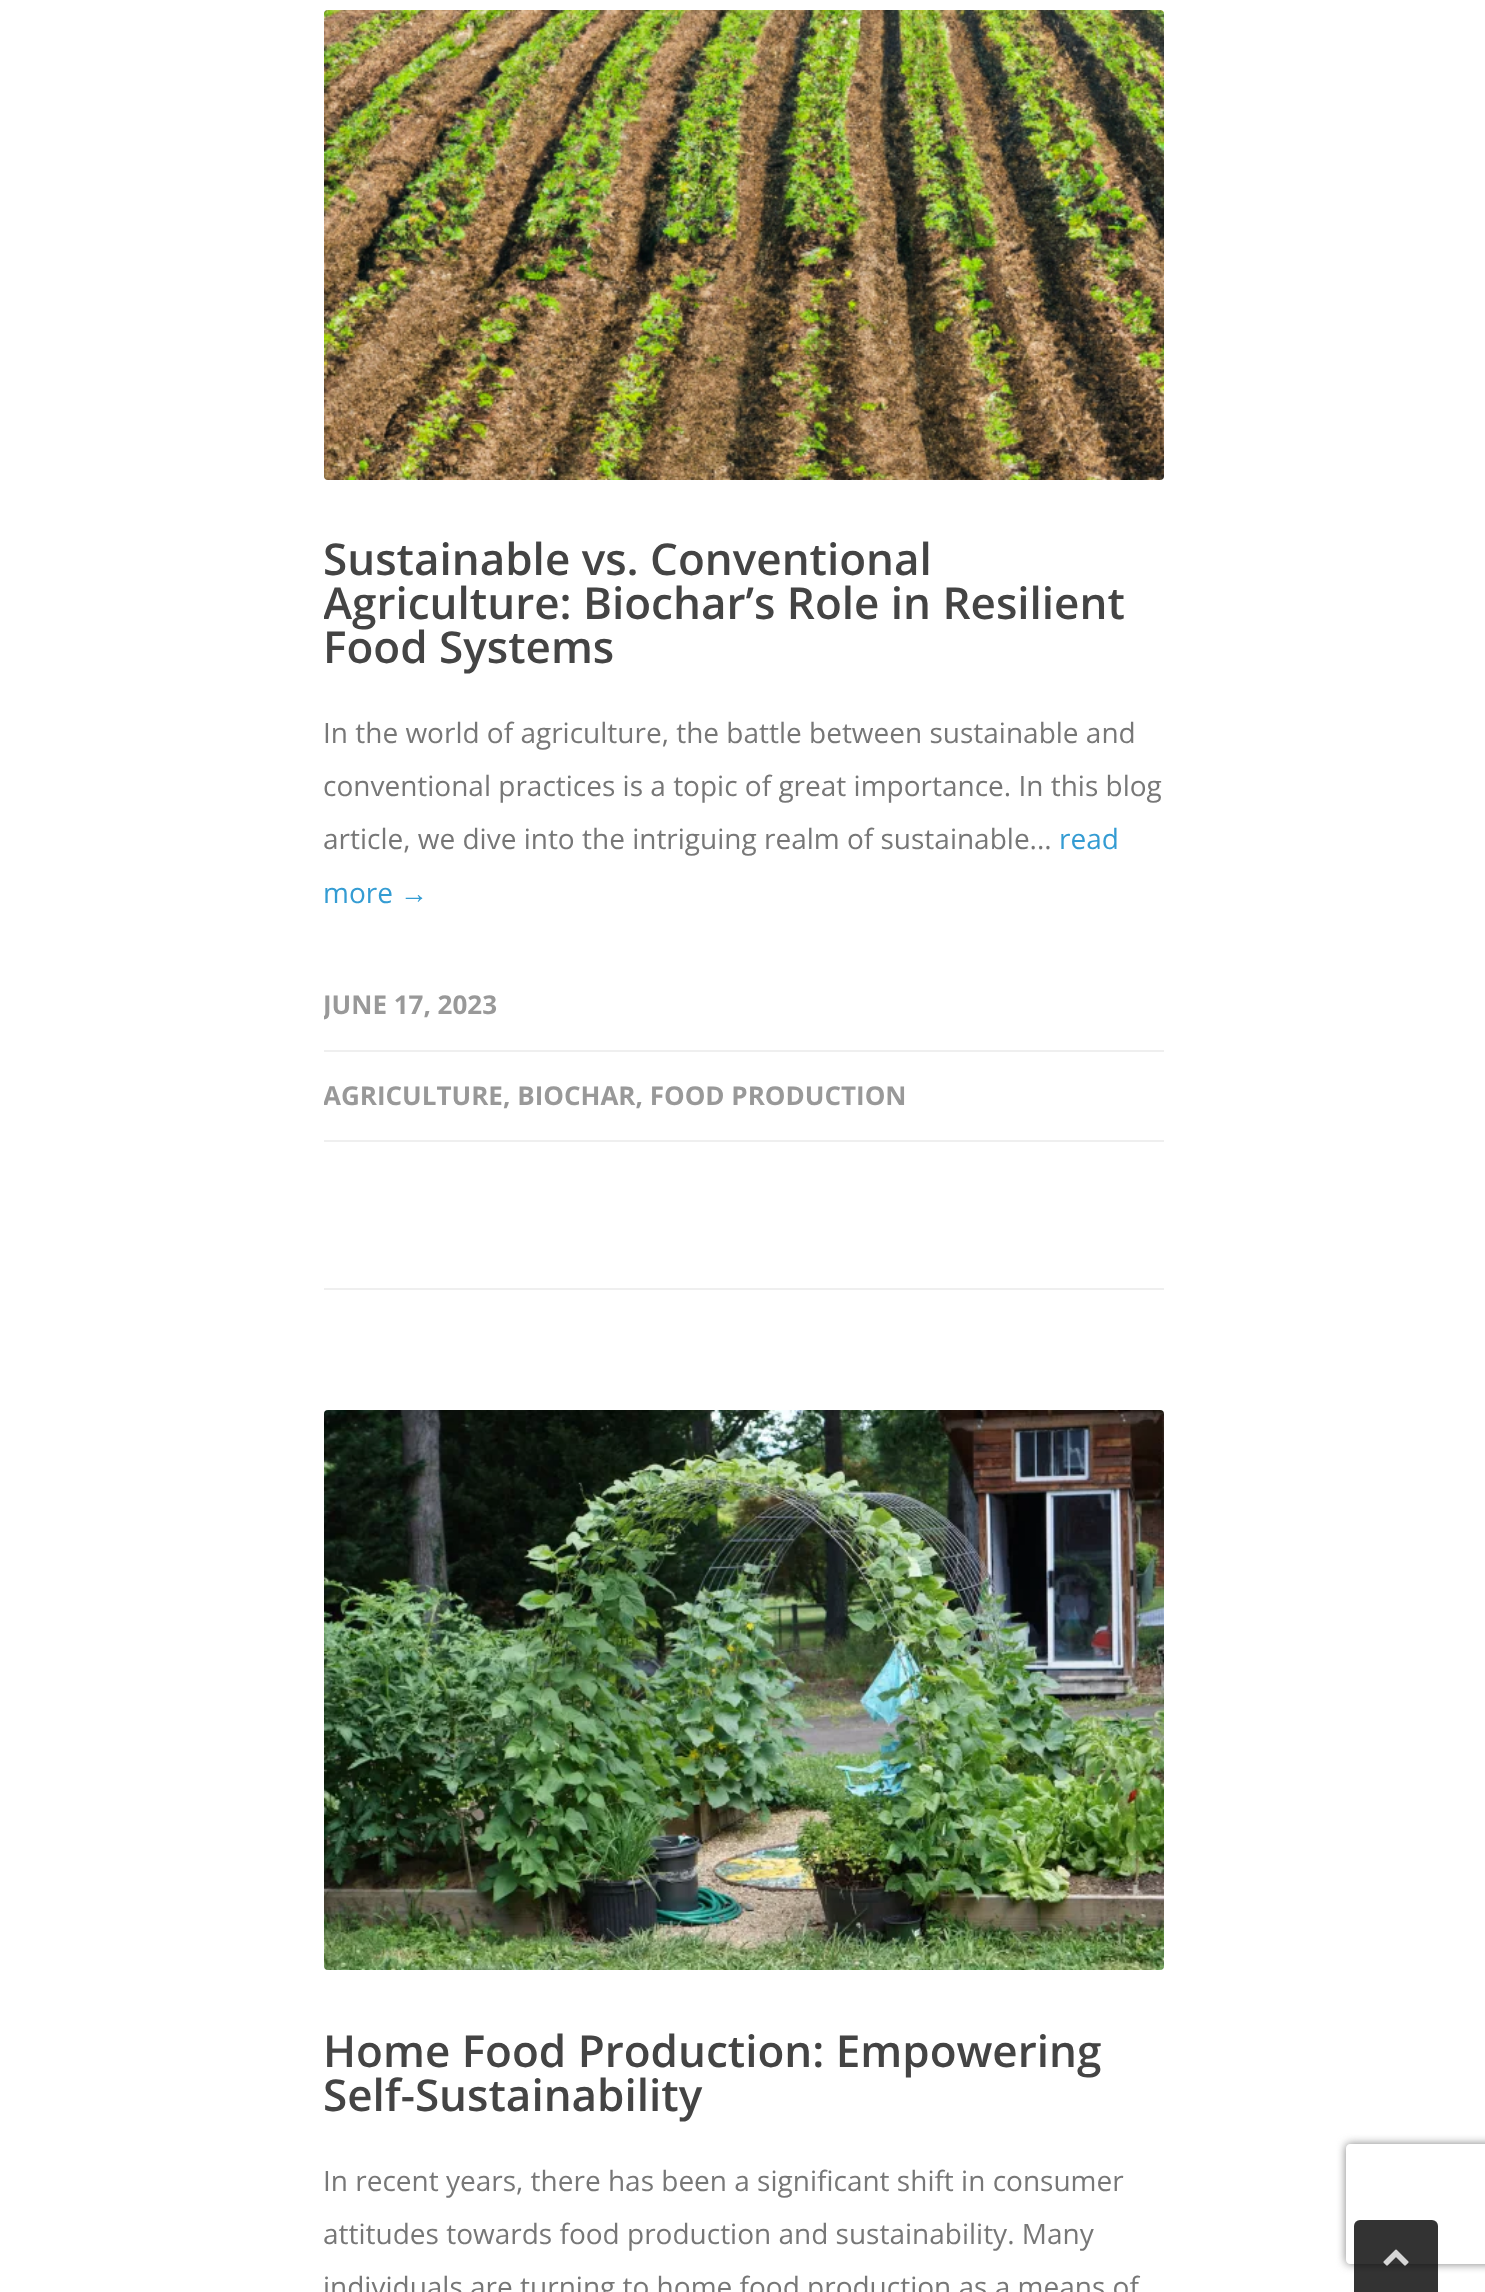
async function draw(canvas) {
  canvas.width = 1485
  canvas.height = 2292
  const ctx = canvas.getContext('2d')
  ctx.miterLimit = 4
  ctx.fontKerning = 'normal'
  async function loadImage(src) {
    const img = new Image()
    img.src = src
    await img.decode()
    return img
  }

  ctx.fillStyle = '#fff'
  ctx.fillRect(0, 0, 1485, 2292)
  ctx.fillStyle = '#efefef'
  ctx.fillRect(324, 1288, 840, 2)
  ctx.drawImage(await loadImage('image0.png'), 324, 10, 840, 470)
  ctx.font = '600 44px Open Sans'
  ctx.fillStyle = '#444'
  ctx.fillText('Sustainable vs. Conventional', 323, 575)
  ctx.save()
  ctx.beginPath()
  ctx.rect(324, 536, 840, 646)
  ctx.clip()
  ctx.fillText('Agriculture: Biochar’s Role in Resilient', 323, 619)
  ctx.restore()
  ctx.fillText('Food Systems', 323, 663)
  ctx.font = '28px Open Sans'
  ctx.fillStyle = '#777'
  ctx.fillText('In the world of agriculture, the battle between sustainable and', 323, 743)
  ctx.fillText('conventional practices is a topic of great importance. In this blog', 323, 796)
  ctx.fillText('article, we dive into the intriguing realm of sustainable...', 323, 849)
  ctx.fillStyle = '#349cd3'
  ctx.fillText('read', 1059, 849)
  ctx.fillText('more', 323, 903)
  ctx.font = '28px Liberation Sans'
  ctx.fillText('→', 400, 903)
  ctx.fillStyle = '#efefef'
  ctx.fillRect(324, 1050, 840, 2)
  ctx.save()
  ctx.beginPath()
  ctx.rect(324, 536, 840, 646)
  ctx.clip()
  ctx.font = 'bold 26px Open Sans'
  ctx.fillStyle = '#999'
  ctx.fillText('JUNE 17, 2023', 323, 1014)
  ctx.restore()
  ctx.fillRect(324, 1140, 840, 2)
  ctx.save()
  ctx.beginPath()
  ctx.rect(324, 536, 840, 646)
  ctx.clip()
  ctx.font = 'bold 26px Open Sans'
  ctx.fillStyle = '#999'
  ctx.fillText('AGRICULTURE', 323, 1105)
  ctx.restore()
  ctx.font = 'bold 26px Open Sans'
  ctx.fillStyle = '#999'
  ctx.fillText(', BIOCHAR, FOOD PRODUCTION', 503, 1105)
  ctx.drawImage(await loadImage('image1.png'), 324, 1410, 840, 560)
  ctx.font = '600 44px Open Sans'
  ctx.fillStyle = '#444'
  ctx.fillText('Home Food Production: Empowering', 323, 2067)
  ctx.fillText('Self-Sustainability', 323, 2111)
  ctx.font = '28px Open Sans'
  ctx.fillStyle = '#777'
  ctx.fillText('In recent years, there has been a significant shift in consumer', 323, 2191)
  ctx.fillText('attitudes towards food production and sustainability. Many', 323, 2244)
  ctx.fillText('individuals are turning to home food production as a means of', 323, 2297)
  ctx.save()
  ctx.beginPath()
  ctx.moveTo(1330, 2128)
  ctx.lineTo(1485, 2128)
  ctx.lineTo(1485, 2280)
  ctx.lineTo(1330, 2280)
  ctx.closePath()
  ctx.moveTo(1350, 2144)
  ctx.lineTo(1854, 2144)
  ctx.bezierCurveTo(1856, 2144, 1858, 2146, 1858, 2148)
  ctx.lineTo(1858, 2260)
  ctx.bezierCurveTo(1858, 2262, 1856, 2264, 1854, 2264)
  ctx.lineTo(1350, 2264)
  ctx.bezierCurveTo(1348, 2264, 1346, 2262, 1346, 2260)
  ctx.lineTo(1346, 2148)
  ctx.bezierCurveTo(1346, 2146, 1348, 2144, 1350, 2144)
  ctx.closePath()
  ctx.clip('evenodd')
  ctx.fillStyle = '#808080'
  ctx.filter = 'blur(5px)'
  ctx.beginPath()
  ctx.roundRect(1346, 2144, 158, 120, 4)
  ctx.fill()
  ctx.filter = 'none'
  ctx.restore()
  ctx.fillStyle = '#000000cc'
  ctx.beginPath()
  ctx.roundRect(1354, 2220, 84, 72, [6, 6, 0, 0])
  ctx.fill()
  ctx.drawImage(await loadImage('image2.png'), 1383, 2249, 26, 17)
}

draw(document.querySelector('canvas'))
